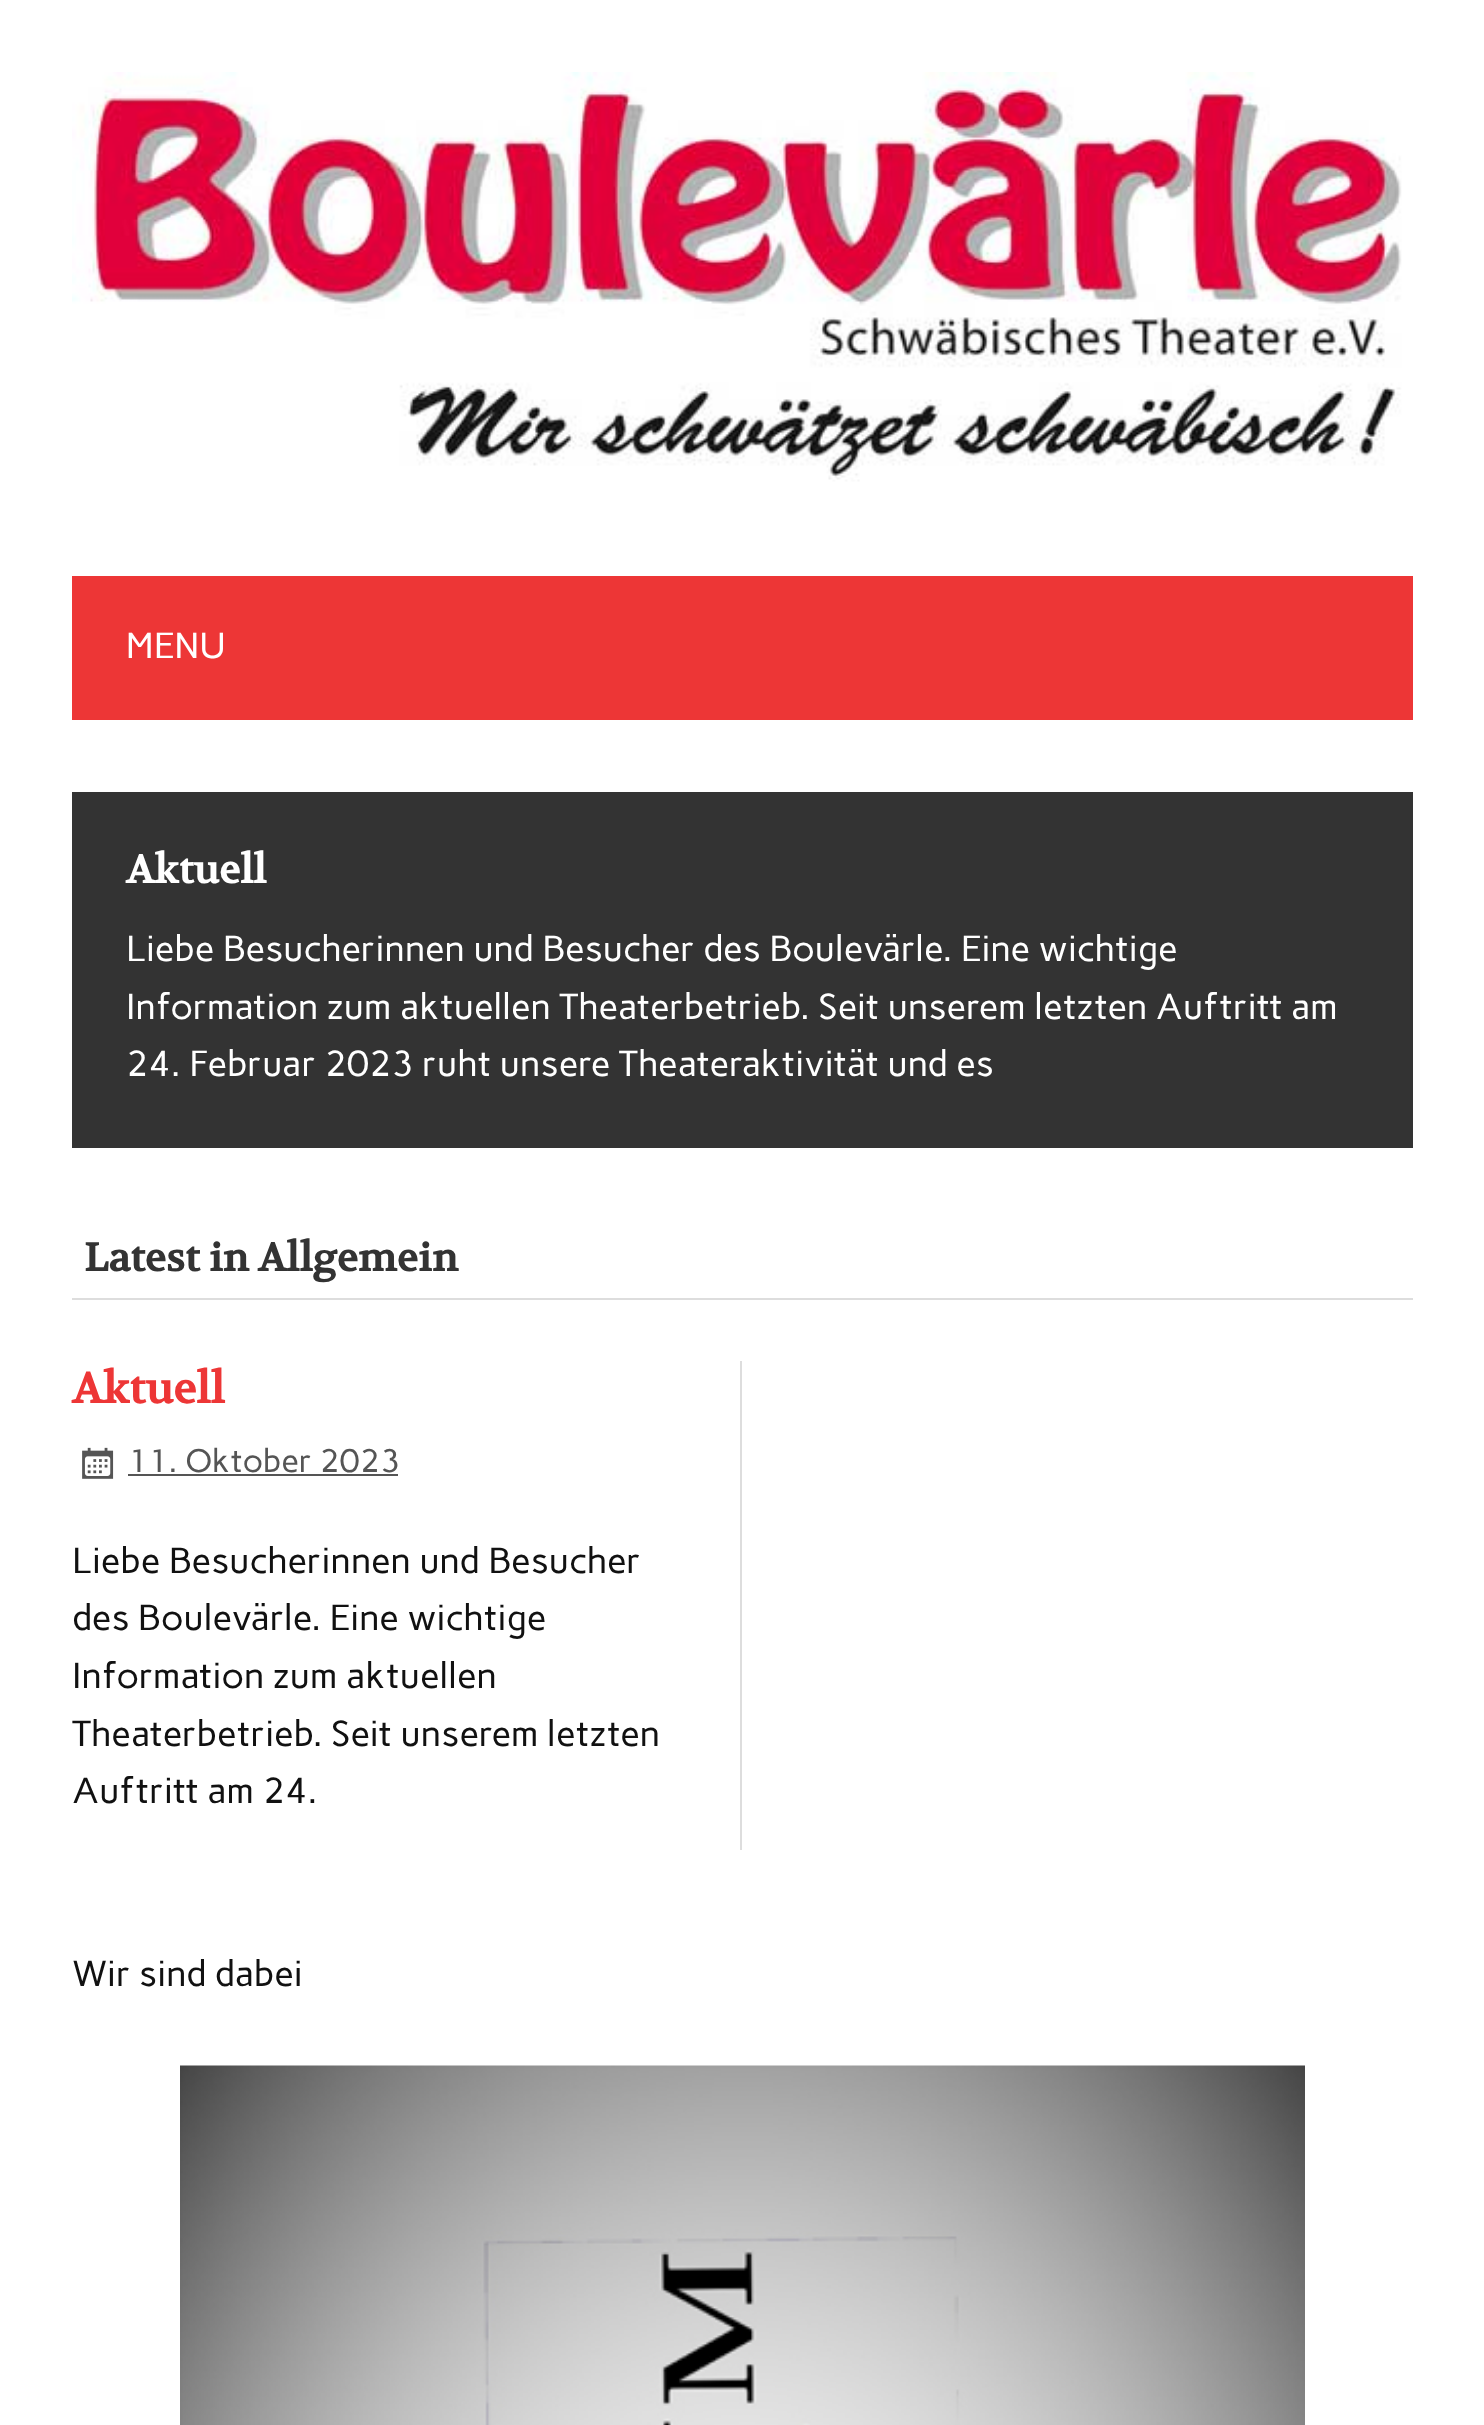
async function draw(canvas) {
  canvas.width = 1484
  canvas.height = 2425
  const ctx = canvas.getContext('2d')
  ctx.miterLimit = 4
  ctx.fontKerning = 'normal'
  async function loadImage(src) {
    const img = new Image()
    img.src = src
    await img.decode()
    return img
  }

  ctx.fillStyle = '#fff'
  ctx.fillRect(0, 0, 1484, 2425)
  ctx.drawImage(await loadImage('image0.png'), 72, 72, 1330, 410)
  ctx.fillStyle = '#ed3636'
  ctx.fillRect(72, 576, 1341, 144)
  ctx.font = '36px Carme'
  ctx.fillStyle = '#fff'
  ctx.fillText('MENU', 126, 658)
  ctx.fillStyle = '#333'
  ctx.fillRect(72, 792, 1341, 356)
  ctx.font = 'bold 39.5px Volkhov'
  ctx.fillStyle = '#fff'
  ctx.fillText('Aktuell', 126, 883)
  ctx.font = '36px Carme'
  ctx.fillText('Liebe Besucherinnen und Besucher des Boulevärle. Eine wichtige', 126, 961)
  ctx.fillText('Information zum aktuellen Theaterbetrieb. Seit unserem letzten Auftritt am', 126, 1019)
  ctx.fillText('24. Februar 2023 ruht unsere Theateraktivität und es', 126, 1076)
  ctx.fillStyle = '#ddd'
  ctx.fillRect(72, 1298, 1341, 2)
  ctx.font = 'bold 39.5px Volkhov'
  ctx.fillStyle = '#333'
  ctx.fillText('Latest in Allgemein', 84, 1271)
  ctx.fillStyle = '#ddd'
  ctx.fillRect(740, 1361, 2, 489)
  ctx.font = 'bold 43px Volkhov'
  ctx.fillStyle = '#ed3636'
  ctx.fillText('Aktuell', 72, 1403)
  ctx.drawImage(await loadImage('image1.png'), 82, 1447, 32, 32)
  ctx.font = '32.5px Carme'
  ctx.fillStyle = '#555'
  ctx.fillText('11. Oktober 2023', 128, 1472)
  ctx.fillRect(128, 1474, 270, 2)
  ctx.font = '36px Carme'
  ctx.fillStyle = '#111'
  ctx.fillText('Liebe Besucherinnen und Besucher', 72, 1573)
  ctx.fillText('des Boulevärle. Eine wichtige', 72, 1630)
  ctx.fillText('Information zum aktuellen', 72, 1688)
  ctx.fillText('Theaterbetrieb. Seit unserem letzten', 72, 1746)
  ctx.fillText('Auftritt am 24.', 72, 1803)
  ctx.fillText('Wir sind dabei', 72, 1986)
  ctx.drawImage(await loadImage('image2.png'), 180, 2065, 1125, 360)
}

draw(document.querySelector('canvas'))
